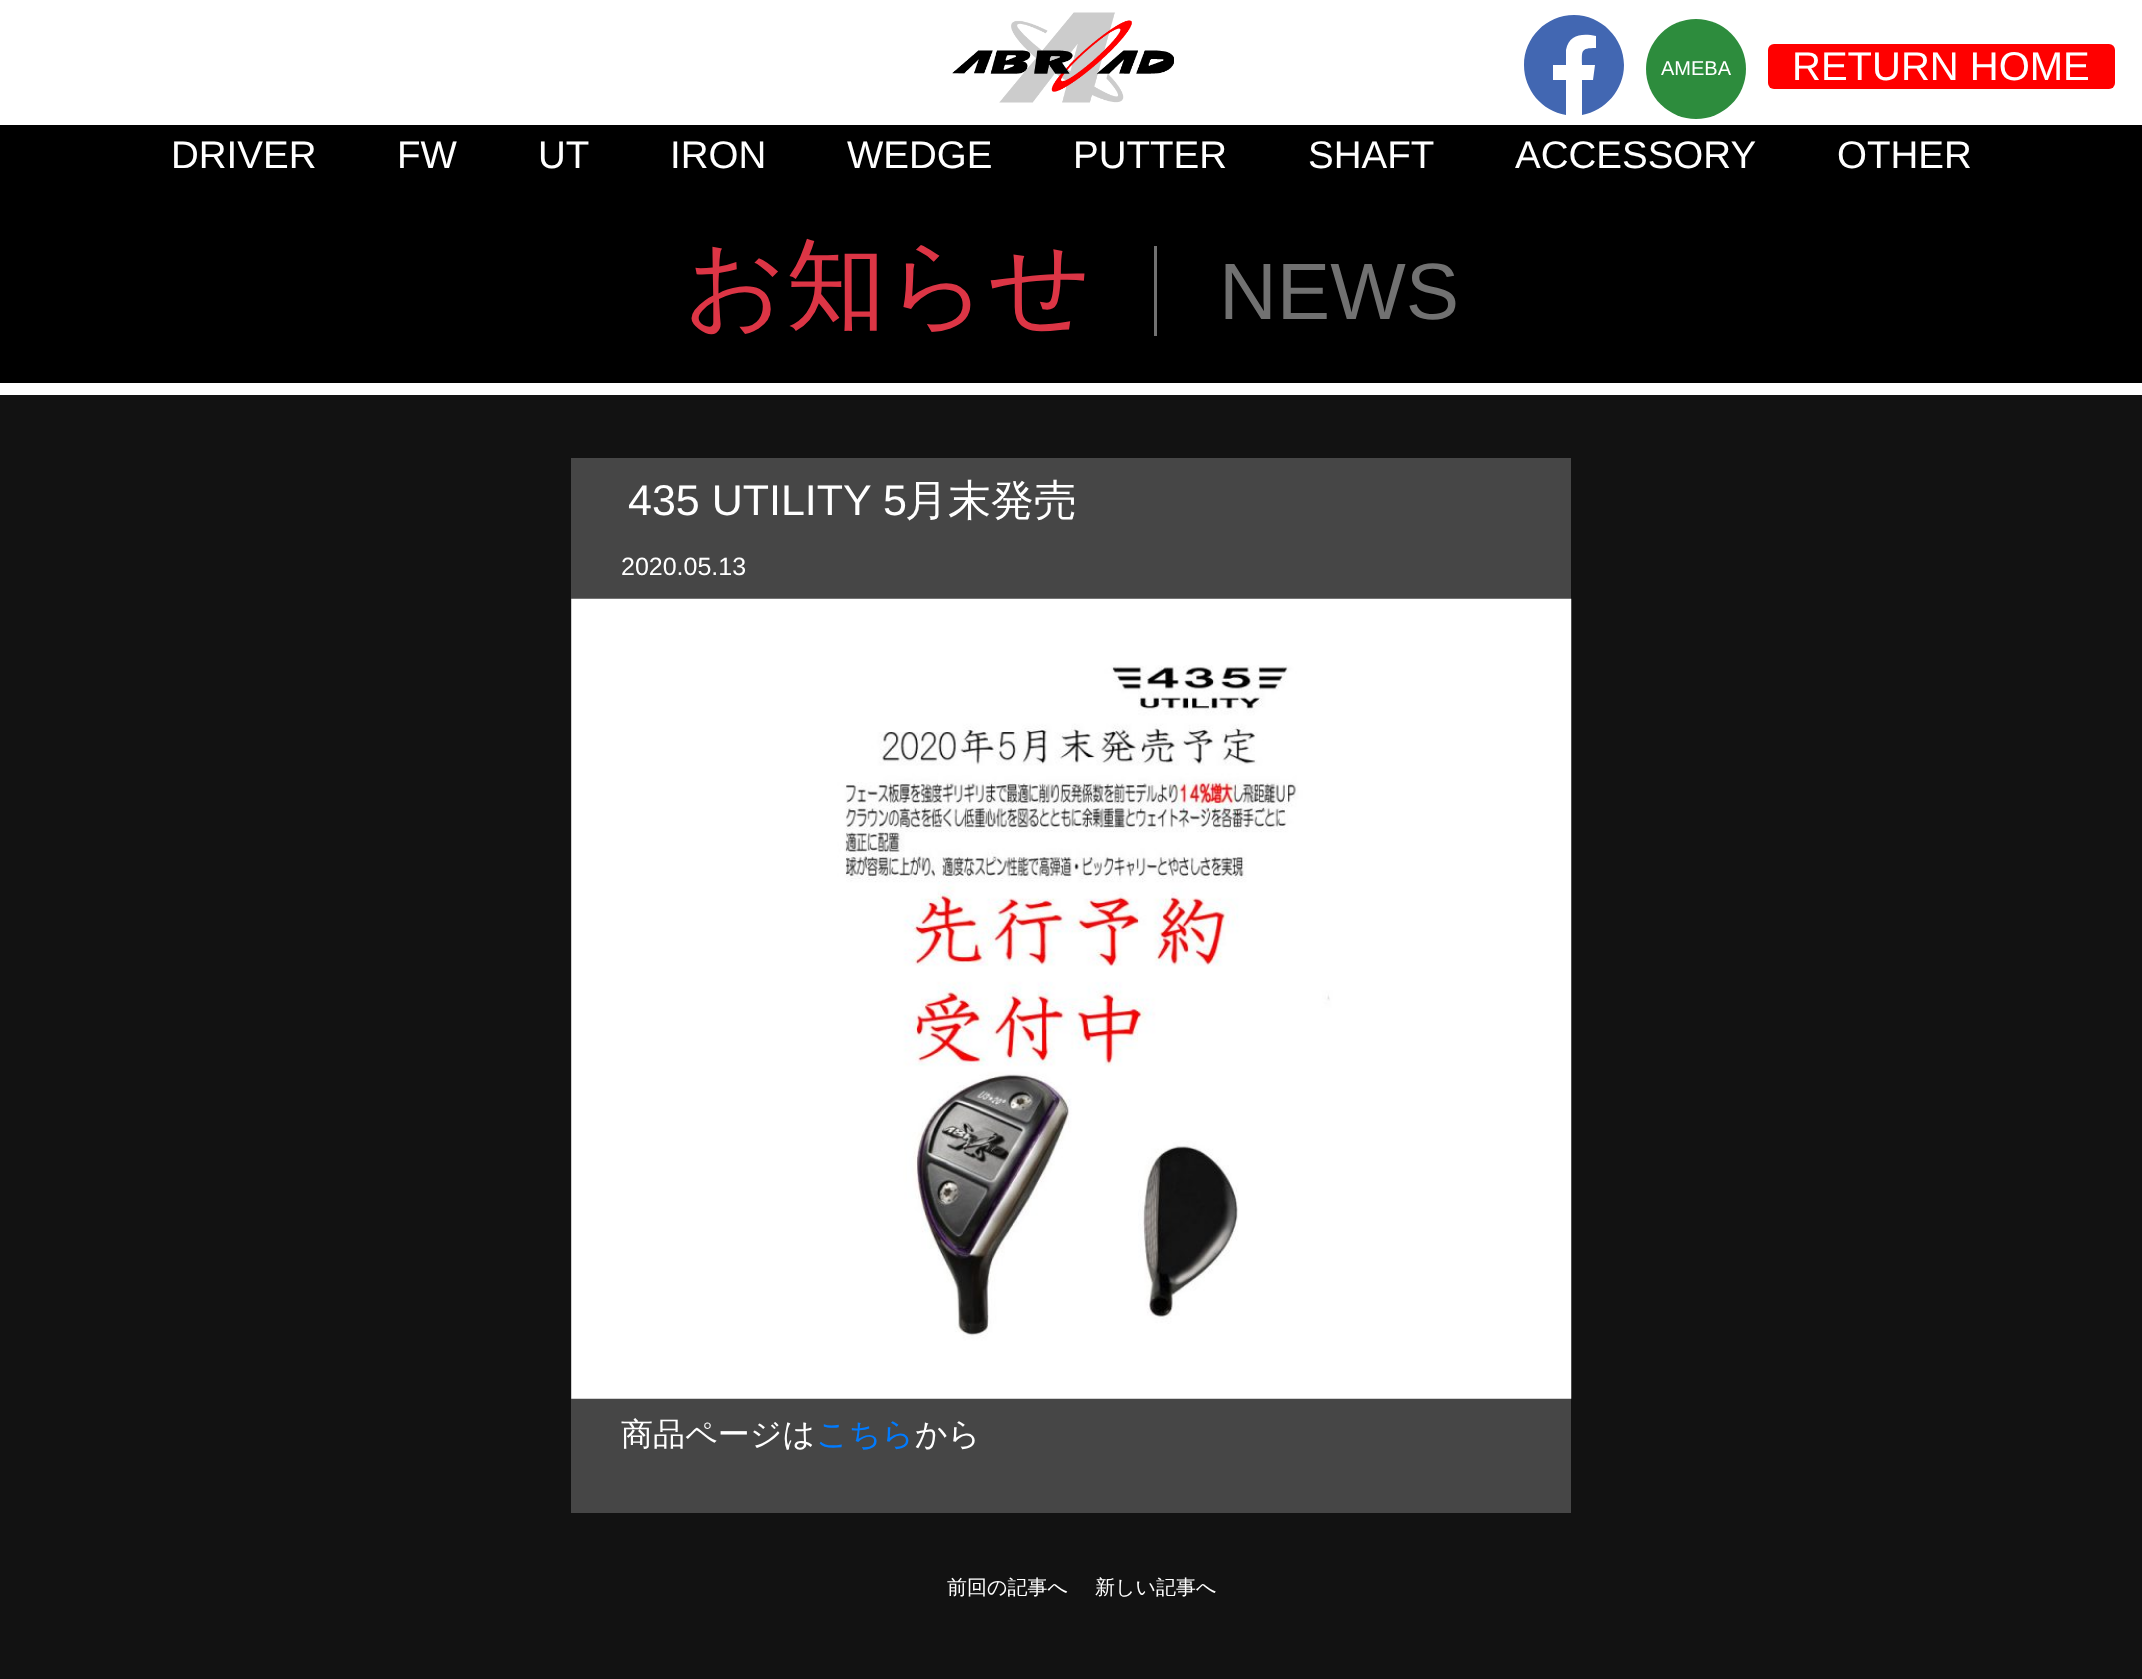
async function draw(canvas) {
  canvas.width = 2142
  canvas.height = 1679
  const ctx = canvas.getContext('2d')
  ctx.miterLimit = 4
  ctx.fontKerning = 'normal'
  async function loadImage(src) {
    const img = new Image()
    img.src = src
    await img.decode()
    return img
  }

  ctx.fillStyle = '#121212'
  ctx.fillRect(0, 0, 2142, 1679)
  ctx.fillStyle = '#000'
  ctx.fillRect(0, 125, 2142, 258)
  ctx.fillStyle = '#fff'
  ctx.fillRect(0, 0, 2142, 125)
  ctx.drawImage(await loadImage('image0.png'), 952, 12, 222, 91)
  ctx.fillStyle = '#4267b2'
  ctx.beginPath()
  ctx.moveTo(1624, 65)
  ctx.bezierCurveTo(1624, 38, 1601, 15, 1574, 15)
  ctx.bezierCurveTo(1546, 15, 1524, 38, 1524, 65)
  ctx.bezierCurveTo(1524, 90, 1542, 111, 1566, 115)
  ctx.lineTo(1566, 80)
  ctx.lineTo(1553, 80)
  ctx.lineTo(1553, 65)
  ctx.lineTo(1566, 65)
  ctx.lineTo(1566, 50)
  ctx.bezierCurveTo(1569, 34, 1583, 33, 1596, 36)
  ctx.lineTo(1596, 48)
  ctx.bezierCurveTo(1580, 48, 1582, 51, 1582, 65)
  ctx.lineTo(1595, 65)
  ctx.lineTo(1593, 80)
  ctx.lineTo(1582, 80)
  ctx.lineTo(1582, 115)
  ctx.bezierCurveTo(1605, 111, 1624, 90, 1624, 65)
  ctx.closePath()
  ctx.fill()
  ctx.fillStyle = '#2d8c3d'
  ctx.beginPath()
  ctx.arc(1696, 69, 50, 0, 2 * Math.PI)
  ctx.fill()
  ctx.font = '20px Liberation Sans'
  ctx.fillStyle = '#fff'
  ctx.fillText('AMEBA', 1661, 75)
  ctx.fillStyle = '#f00'
  ctx.beginPath()
  ctx.roundRect(1768, 44, 347, 45, 6)
  ctx.fill()
  ctx.font = '40px Liberation Sans'
  ctx.fillStyle = '#fff'
  ctx.fillText('RETURN HOME', 1792, 80)
  ctx.font = '38.5px Liberation Sans'
  ctx.fillText('DRIVER', 171, 168)
  ctx.fillText('FW', 397, 168)
  ctx.fillText('UT', 538, 168)
  ctx.fillText('IRON', 670, 168)
  ctx.fillText('WEDGE', 847, 168)
  ctx.fillText('PUTTER', 1073, 168)
  ctx.fillText('SHAFT', 1308, 168)
  ctx.fillText('ACCESSORY', 1515, 168)
  ctx.fillText('OTHER', 1837, 168)
  ctx.fillRect(0, 383, 2142, 12)
  ctx.font = '500 100px WenQuanYi Zen Hei'
  ctx.fillStyle = '#dc3545'
  ctx.fillText('お知らせ', 684, 319)
  ctx.font = '80px Liberation Sans'
  ctx.fillStyle = '#717171'
  ctx.fillText('NEWS', 1219, 319)
  ctx.fillRect(1154, 246, 3, 90)
  ctx.fillStyle = '#464646'
  ctx.fillRect(571, 458, 1000, 1055)
  ctx.font = '43px Liberation Sans'
  ctx.fillStyle = '#fff'
  ctx.fillText('435 UTILITY 5', 628, 515)
  ctx.font = '500 43px WenQuanYi Zen Hei'
  ctx.fillText('月末発売', 905, 515)
  ctx.font = '25px Liberation Sans'
  ctx.fillText('2020.05.13', 621, 575)
  ctx.drawImage(await loadImage('image1.png'), 571, 598, 1001, 801)
  ctx.font = '500 32px WenQuanYi Zen Hei'
  ctx.fillText('商品ページは', 621, 1445)
  ctx.fillStyle = '#007bff'
  ctx.fillText('こちら', 816, 1445)
  ctx.fillStyle = '#fff'
  ctx.fillText('から', 915, 1445)
  ctx.font = '500 20px WenQuanYi Zen Hei'
  ctx.fillText('前回の記事へ', 947, 1594)
  ctx.fillText('新しい記事へ', 1095, 1594)
}

draw(document.querySelector('canvas'))
